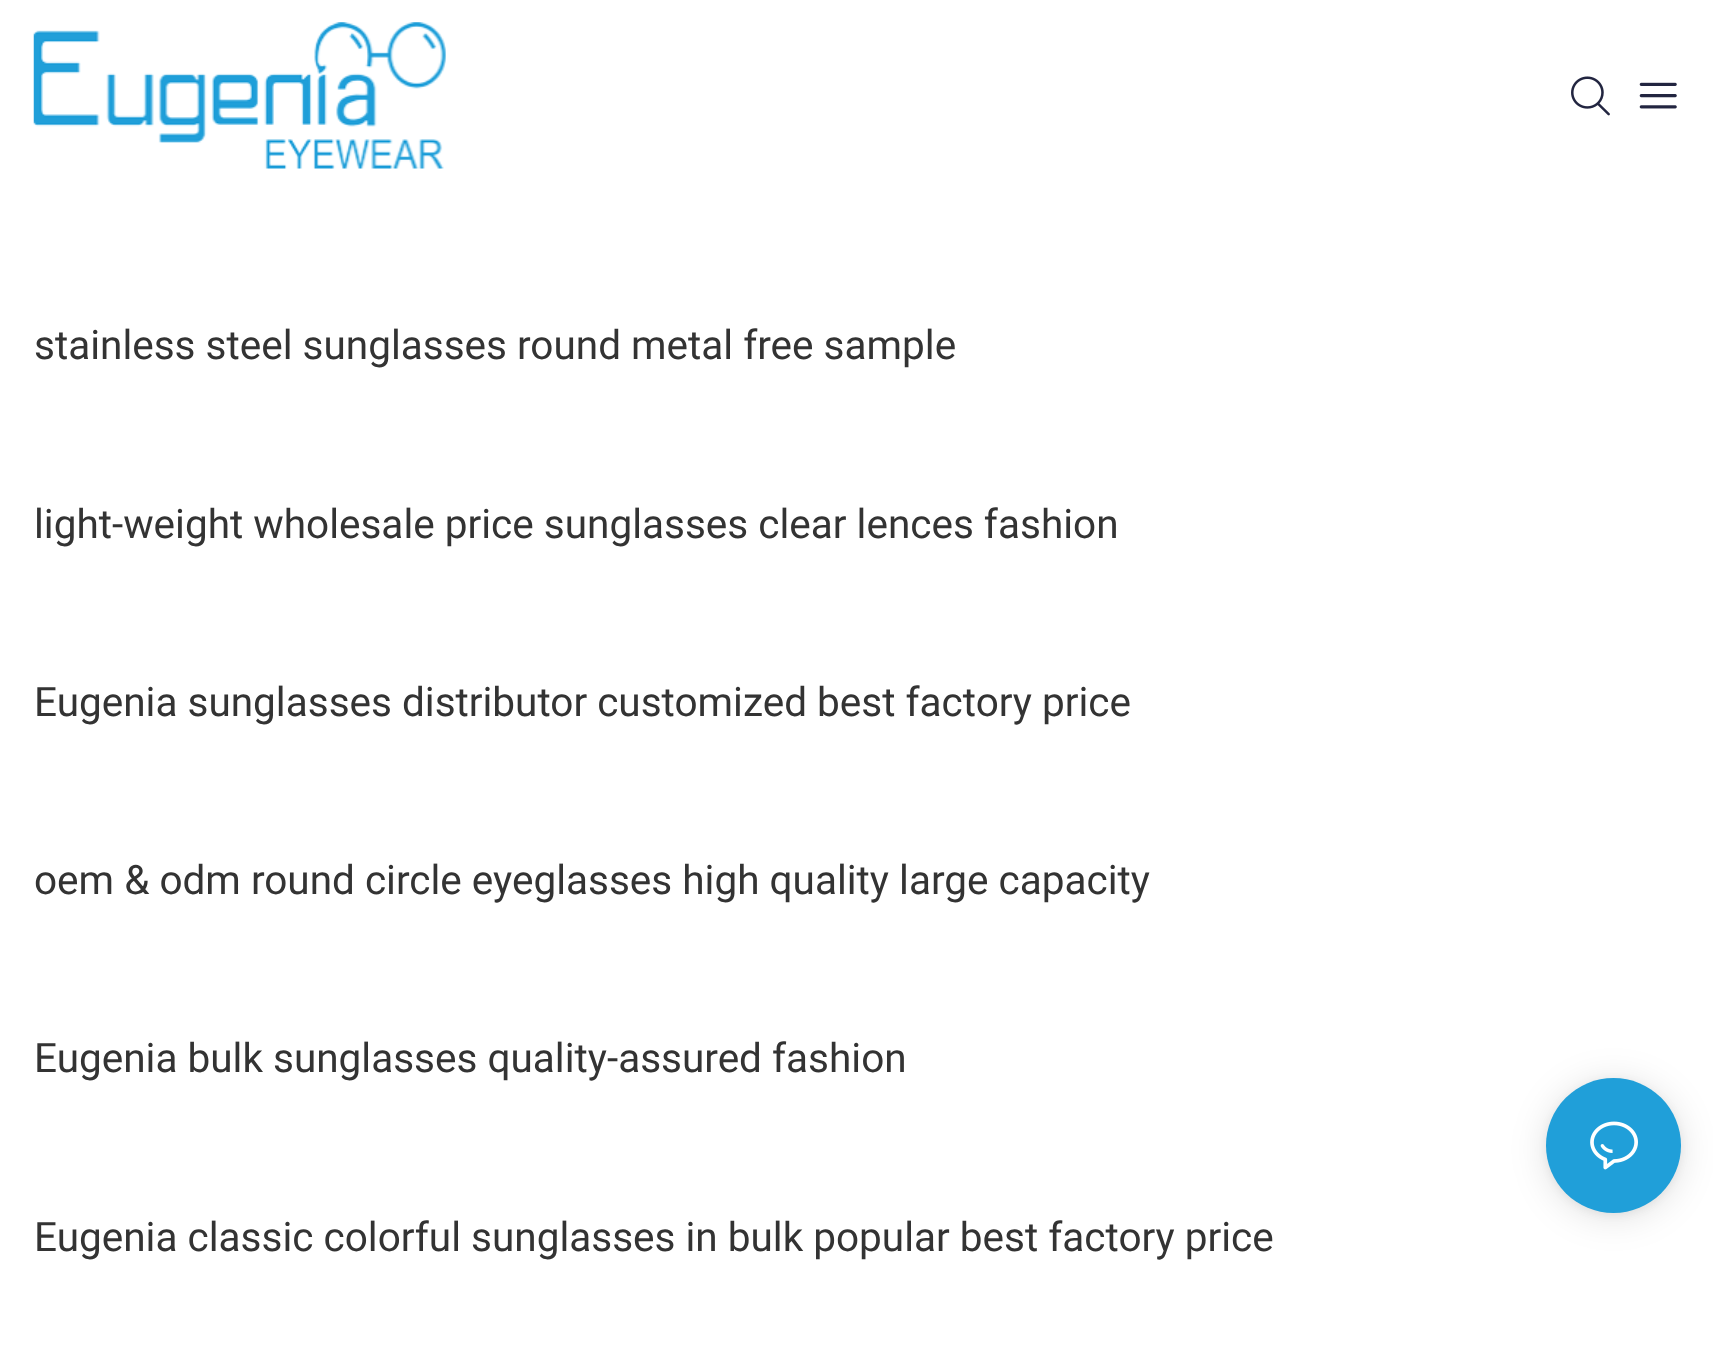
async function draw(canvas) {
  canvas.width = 1713
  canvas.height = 1346
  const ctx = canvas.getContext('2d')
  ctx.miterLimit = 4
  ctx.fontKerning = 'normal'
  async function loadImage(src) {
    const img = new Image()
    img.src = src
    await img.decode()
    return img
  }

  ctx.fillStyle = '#fff'
  ctx.fillRect(0, 0, 1713, 1346)
  ctx.drawImage(await loadImage('image0.png'), 33, 22, 413, 147)
  ctx.drawImage(await loadImage('image1.png'), 1571, 76, 39, 40)
  ctx.drawImage(await loadImage('image2.png'), 1639, 82, 38, 27)
  ctx.font = '40.5px Roboto'
  ctx.fillStyle = '#333'
  ctx.fillText('stainless steel sunglasses round metal free sample', 34, 359)
  ctx.fillText('light-weight wholesale price sunglasses clear lences fashion', 34, 538)
  ctx.fillText('Eugenia sunglasses distributor customized best factory price', 34, 716)
  ctx.fillText('oem & odm round circle eyeglasses high quality large capacity', 34, 894)
  ctx.fillText('Eugenia bulk sunglasses quality-assured fashion', 34, 1072)
  ctx.fillText('Eugenia classic colorful sunglasses in bulk popular best factory price', 34, 1251)
  ctx.fillStyle = '#0000001f'
  ctx.filter = 'blur(18px)'
  ctx.beginPath()
  ctx.roundRect(1546, 1082, 135, 135, 67.5)
  ctx.fill()
  ctx.filter = 'none'
  ctx.fillStyle = '#0000000f'
  ctx.filter = 'blur(4.5px)'
  ctx.beginPath()
  ctx.roundRect(1546, 1080, 135, 135, 67.5)
  ctx.fill()
  ctx.filter = 'none'
  ctx.fillStyle = '#209fd9'
  ctx.beginPath()
  ctx.arc(1613.5, 1145.5, 67.5, 0, 2 * Math.PI)
  ctx.fill()
  ctx.drawImage(await loadImage('image3.png'), 1590, 1121, 48, 49)
}

draw(document.querySelector('canvas'))
